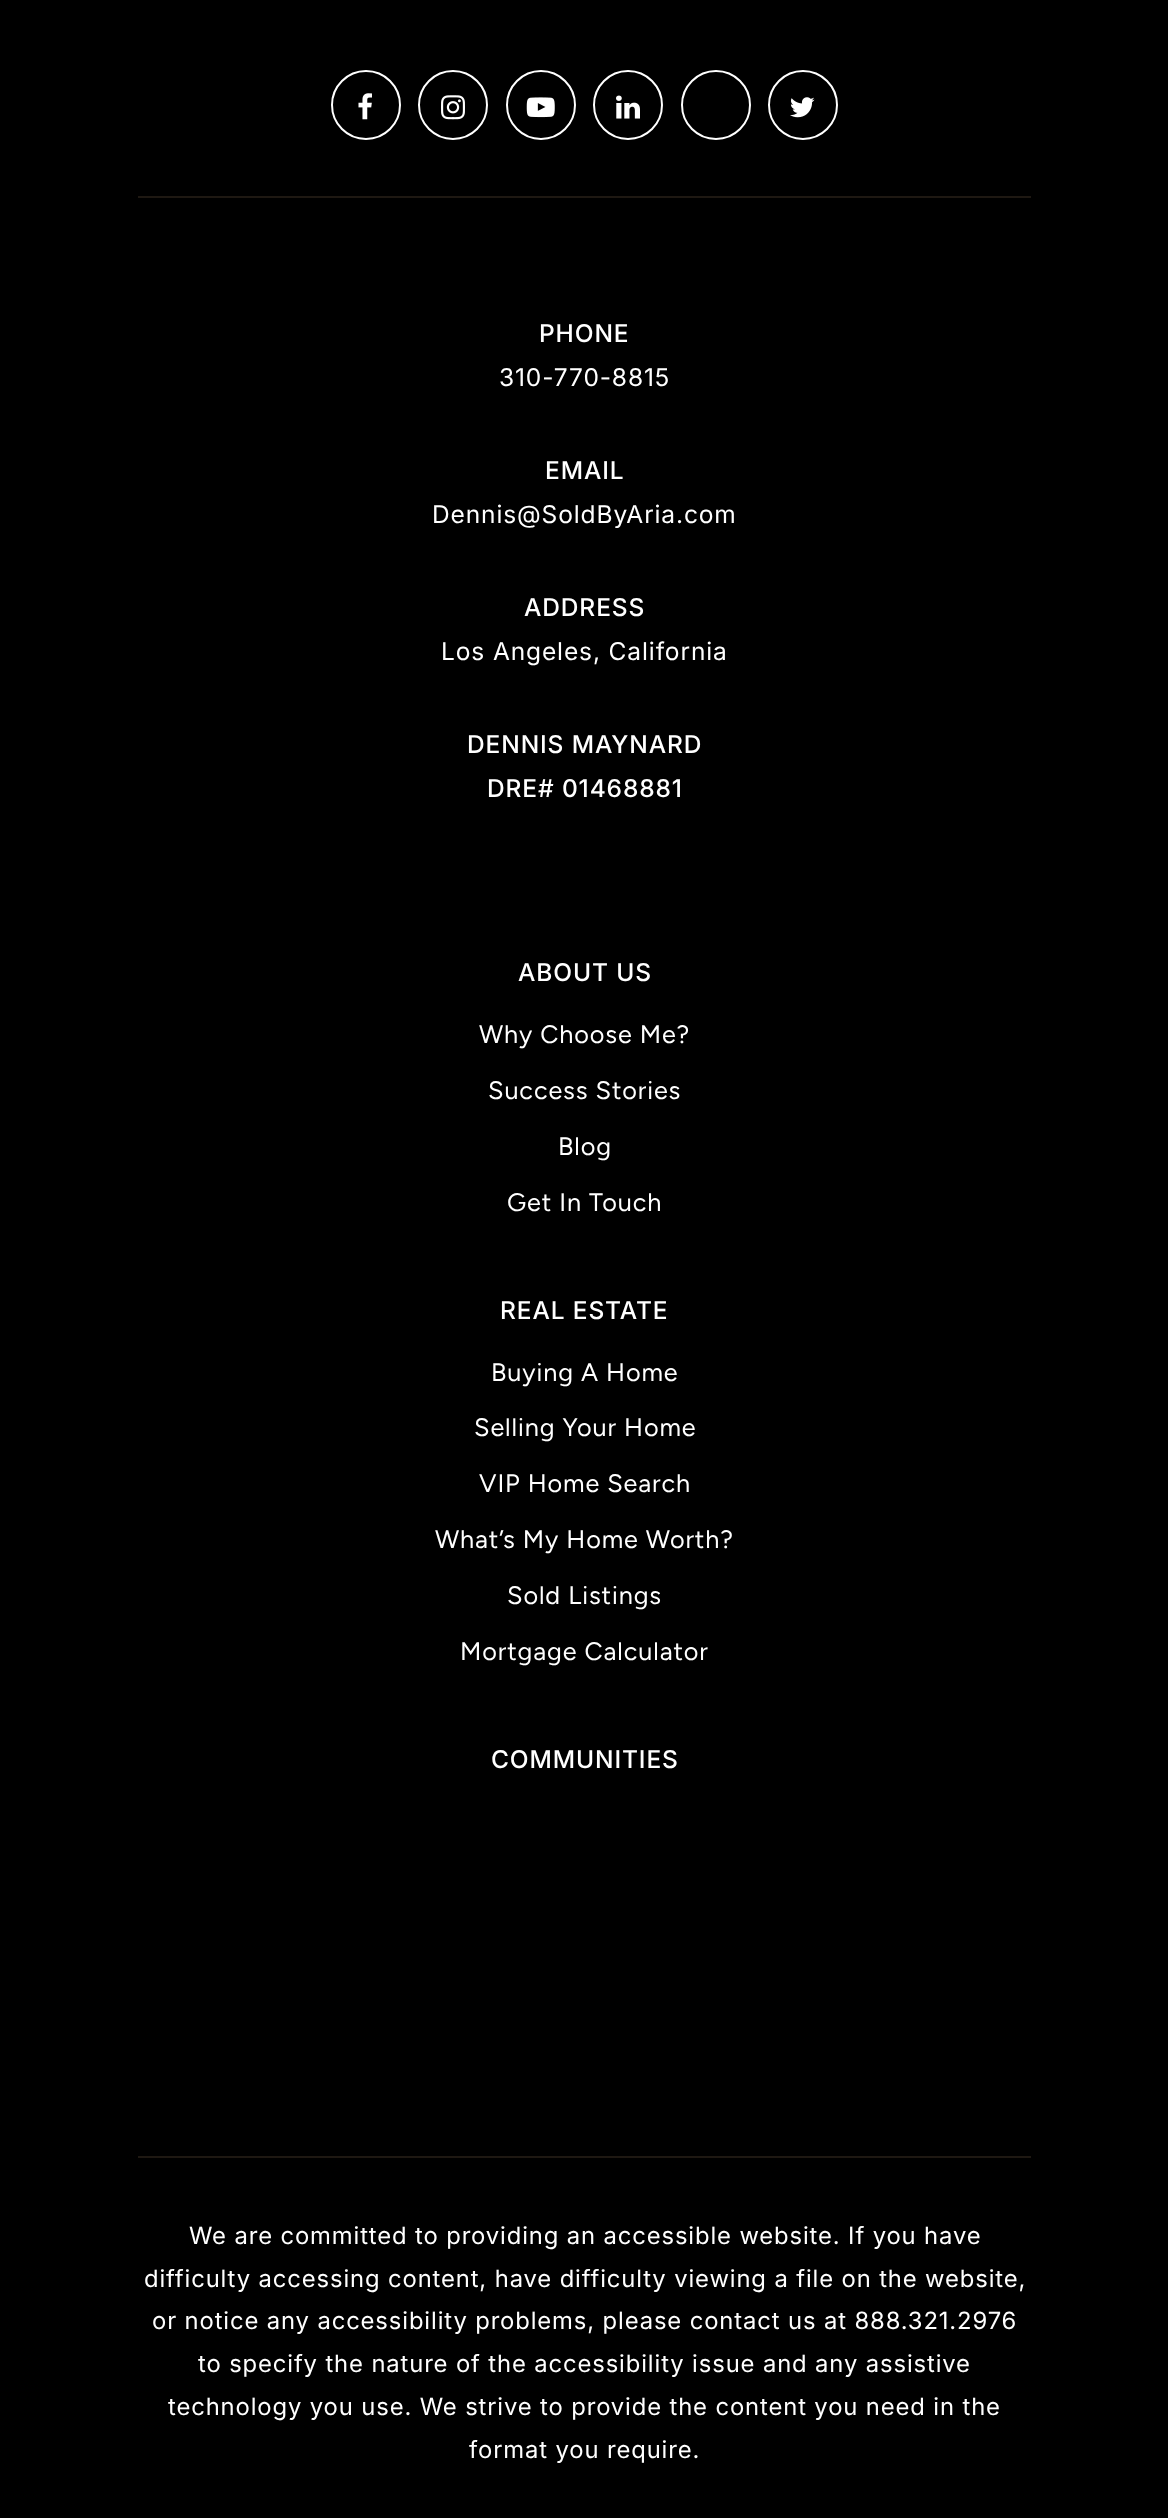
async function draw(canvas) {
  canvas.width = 1168
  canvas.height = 2518
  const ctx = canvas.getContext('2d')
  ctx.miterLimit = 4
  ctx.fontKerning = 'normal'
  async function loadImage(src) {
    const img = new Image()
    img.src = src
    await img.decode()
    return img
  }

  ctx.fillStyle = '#000'
  ctx.fillRect(0, 0, 1168, 2518)
  ctx.fillStyle = '#1e1812'
  ctx.fillRect(138, 196, 893, 2)
  ctx.beginPath()
  ctx.arc(366, 105, 34, 0, 2 * Math.PI)
  ctx.strokeStyle = '#fff'
  ctx.lineWidth = 2
  ctx.stroke()
  ctx.drawImage(await loadImage('image0.png'), 358, 93, 14, 27)
  ctx.beginPath()
  ctx.arc(453, 105, 34, 0, 2 * Math.PI)
  ctx.stroke()
  ctx.drawImage(await loadImage('image1.png'), 441, 95, 24, 25)
  ctx.beginPath()
  ctx.arc(541, 105, 34, 0, 2 * Math.PI)
  ctx.stroke()
  ctx.drawImage(await loadImage('image2.png'), 526, 97, 29, 21)
  ctx.beginPath()
  ctx.arc(628, 105, 34, 0, 2 * Math.PI)
  ctx.stroke()
  ctx.drawImage(await loadImage('image3.png'), 616, 95, 24, 24)
  ctx.beginPath()
  ctx.arc(716, 105, 34, 0, 2 * Math.PI)
  ctx.stroke()
  ctx.beginPath()
  ctx.arc(803, 105, 34, 0, 2 * Math.PI)
  ctx.stroke()
  ctx.drawImage(await loadImage('image4.png'), 790, 97, 25, 21)
  ctx.letterSpacing = '0.88px'
  ctx.font = '500 24.5px Inter'
  ctx.fillStyle = '#fff'
  ctx.fillText('PHONE', 539, 342)
  ctx.font = '24.5px Inter'
  ctx.fillText('310-770-8815', 499, 386)
  ctx.font = '500 24.5px Inter'
  ctx.fillText('EMAIL', 545, 479)
  ctx.font = '24.5px Inter'
  ctx.fillText('Dennis@SoldByAria.com', 432, 523)
  ctx.font = '500 24.5px Inter'
  ctx.fillText('ADDRESS', 524, 616)
  ctx.font = '24.5px Inter'
  ctx.fillText('Los Angeles, California', 441, 660)
  ctx.font = '500 24.5px Inter'
  ctx.fillText('DENNIS MAYNARD', 467, 753)
  ctx.fillText('DRE# 01468881', 487, 797)
  ctx.fillText('ABOUT US', 518, 981)
  ctx.font = '25.25px Figtree'
  ctx.fillText('Why Choose Me?', 479, 1043)
  ctx.fillText('Success Stories', 488, 1099)
  ctx.fillText('Blog', 558, 1155)
  ctx.fillText('Get In Touch', 507, 1211)
  ctx.font = '500 24.5px Inter'
  ctx.fillText('REAL ESTATE', 500, 1319)
  ctx.font = '25.25px Figtree'
  ctx.fillText('Buying A Home', 491, 1381)
  ctx.fillText('Selling Your Home', 474, 1436)
  ctx.fillText('VIP Home Search', 479, 1492)
  ctx.fillText('What’s My Home Worth?', 435, 1548)
  ctx.fillText('Sold Listings', 507, 1604)
  ctx.fillText('Mortgage Calculator', 460, 1660)
  ctx.font = '500 24.5px Inter'
  ctx.fillText('COMMUNITIES', 491, 1768)
  ctx.fillStyle = '#1e1812'
  ctx.fillRect(138, 2156, 893, 2)
  ctx.font = '23.8px Inter'
  ctx.fillStyle = '#fff'
  ctx.fillText('We are committed to providing an accessible website. If you have', 189, 2244)
  ctx.fillText('difficulty accessing content, have difficulty viewing a file on the website,', 144, 2287)
  ctx.fillText('or notice any accessibility problems, please contact us at 888.321.2976', 152, 2329)
  ctx.fillText('to specify the nature of the accessibility issue and any assistive', 198, 2372)
  ctx.fillText('technology you use. We strive to provide the content you need in the', 168, 2415)
  ctx.fillText('format you require.', 469, 2458)
}

draw(document.querySelector('canvas'))
